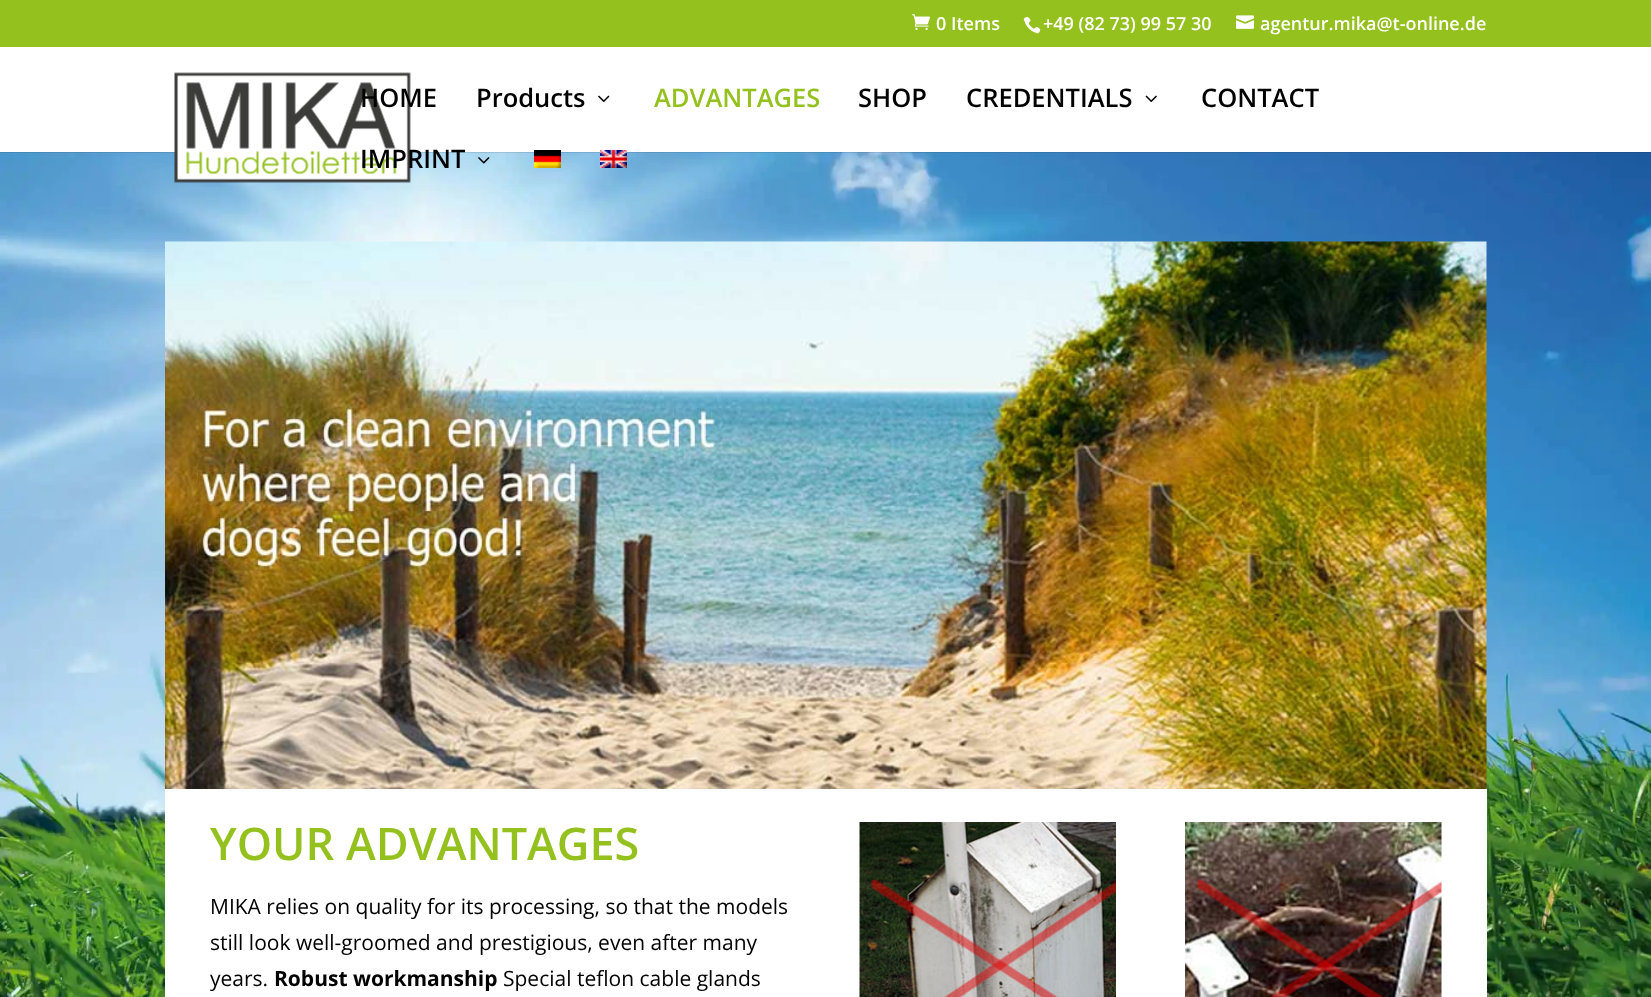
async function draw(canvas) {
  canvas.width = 1651
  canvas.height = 997
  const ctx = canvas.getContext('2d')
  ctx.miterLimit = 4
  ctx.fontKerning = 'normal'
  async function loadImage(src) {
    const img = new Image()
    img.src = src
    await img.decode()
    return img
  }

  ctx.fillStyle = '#fff'
  ctx.fillRect(0, 0, 1651, 997)
  ctx.drawImage(await loadImage('image0.png'), 0, 152, 1651, 845)
  ctx.fillStyle = '#95c11f'
  ctx.fillRect(0, 0, 1651, 47)
  ctx.drawImage(await loadImage('image1.png'), 912, 14, 18, 16)
  ctx.font = '600 18px Open Sans'
  ctx.fillStyle = '#fff'
  ctx.fillText('0 Items', 936, 30)
  ctx.drawImage(await loadImage('image2.png'), 1023, 16, 18, 18)
  ctx.fillText('+49 (82 73) 99 57 30', 1043, 30)
  ctx.drawImage(await loadImage('image3.png'), 1236, 15, 18, 14)
  ctx.fillText('agentur.mika@t-online.de', 1260, 30)
  ctx.fillStyle = '#0000001a'
  ctx.beginPath()
  ctx.moveTo(0, 152)
  ctx.lineTo(0, 153)
  ctx.lineTo(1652, 153)
  ctx.lineTo(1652, 48)
  ctx.lineTo(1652, 152)
  ctx.closePath()
  ctx.fill()
  ctx.drawImage(await loadImage('image4.png'), 174, 72, 237, 111)
  ctx.font = '600 25.5px Open Sans'
  ctx.fillStyle = '#000'
  ctx.fillText('HOME', 360, 107)
  ctx.fillText('Products', 476, 107)
  ctx.drawImage(await loadImage('image5.png'), 598, 95, 12, 7)
  ctx.fillStyle = '#95c11f'
  ctx.fillText('ADVANTAGES', 654, 107)
  ctx.fillStyle = '#000'
  ctx.fillText('SHOP', 858, 107)
  ctx.fillText('CREDENTIALS', 966, 107)
  ctx.drawImage(await loadImage('image6.png'), 1145, 95, 12, 7)
  ctx.fillText('CONTACT', 1201, 107)
  ctx.fillText('IMPRINT', 360, 168)
  ctx.drawImage(await loadImage('image7.png'), 478, 157, 12, 7)
  ctx.drawImage(await loadImage('image8.png'), 534, 150, 27, 18)
  ctx.drawImage(await loadImage('image9.png'), 600, 150, 27, 18)
  ctx.drawImage(await loadImage('image10.png'), 165, 241, 1322, 548)
  ctx.fillStyle = '#fff'
  ctx.fillRect(165, 789, 1322, 208)
  ctx.font = '600 45px Open Sans'
  ctx.fillStyle = '#95c11f'
  ctx.fillText('YOUR ADVANTAGES', 210, 860)
  ctx.font = '21px Open Sans'
  ctx.fillStyle = '#000'
  ctx.fillText('MIKA relies on quality for its processing, so that the models', 210, 914)
  ctx.fillText('still look well-groomed and prestigious, even after many', 210, 950)
  ctx.fillText('years.', 210, 986)
  ctx.font = 'bold 21px Open Sans'
  ctx.fillText('Robust workmanship', 274, 986)
  ctx.font = '21px Open Sans'
  ctx.fillText('Special teflon cable glands', 503, 986)
  ctx.drawImage(await loadImage('image11.png'), 859, 822, 257, 175)
  ctx.drawImage(await loadImage('image12.png'), 1185, 822, 257, 175)
}

draw(document.querySelector('canvas'))
